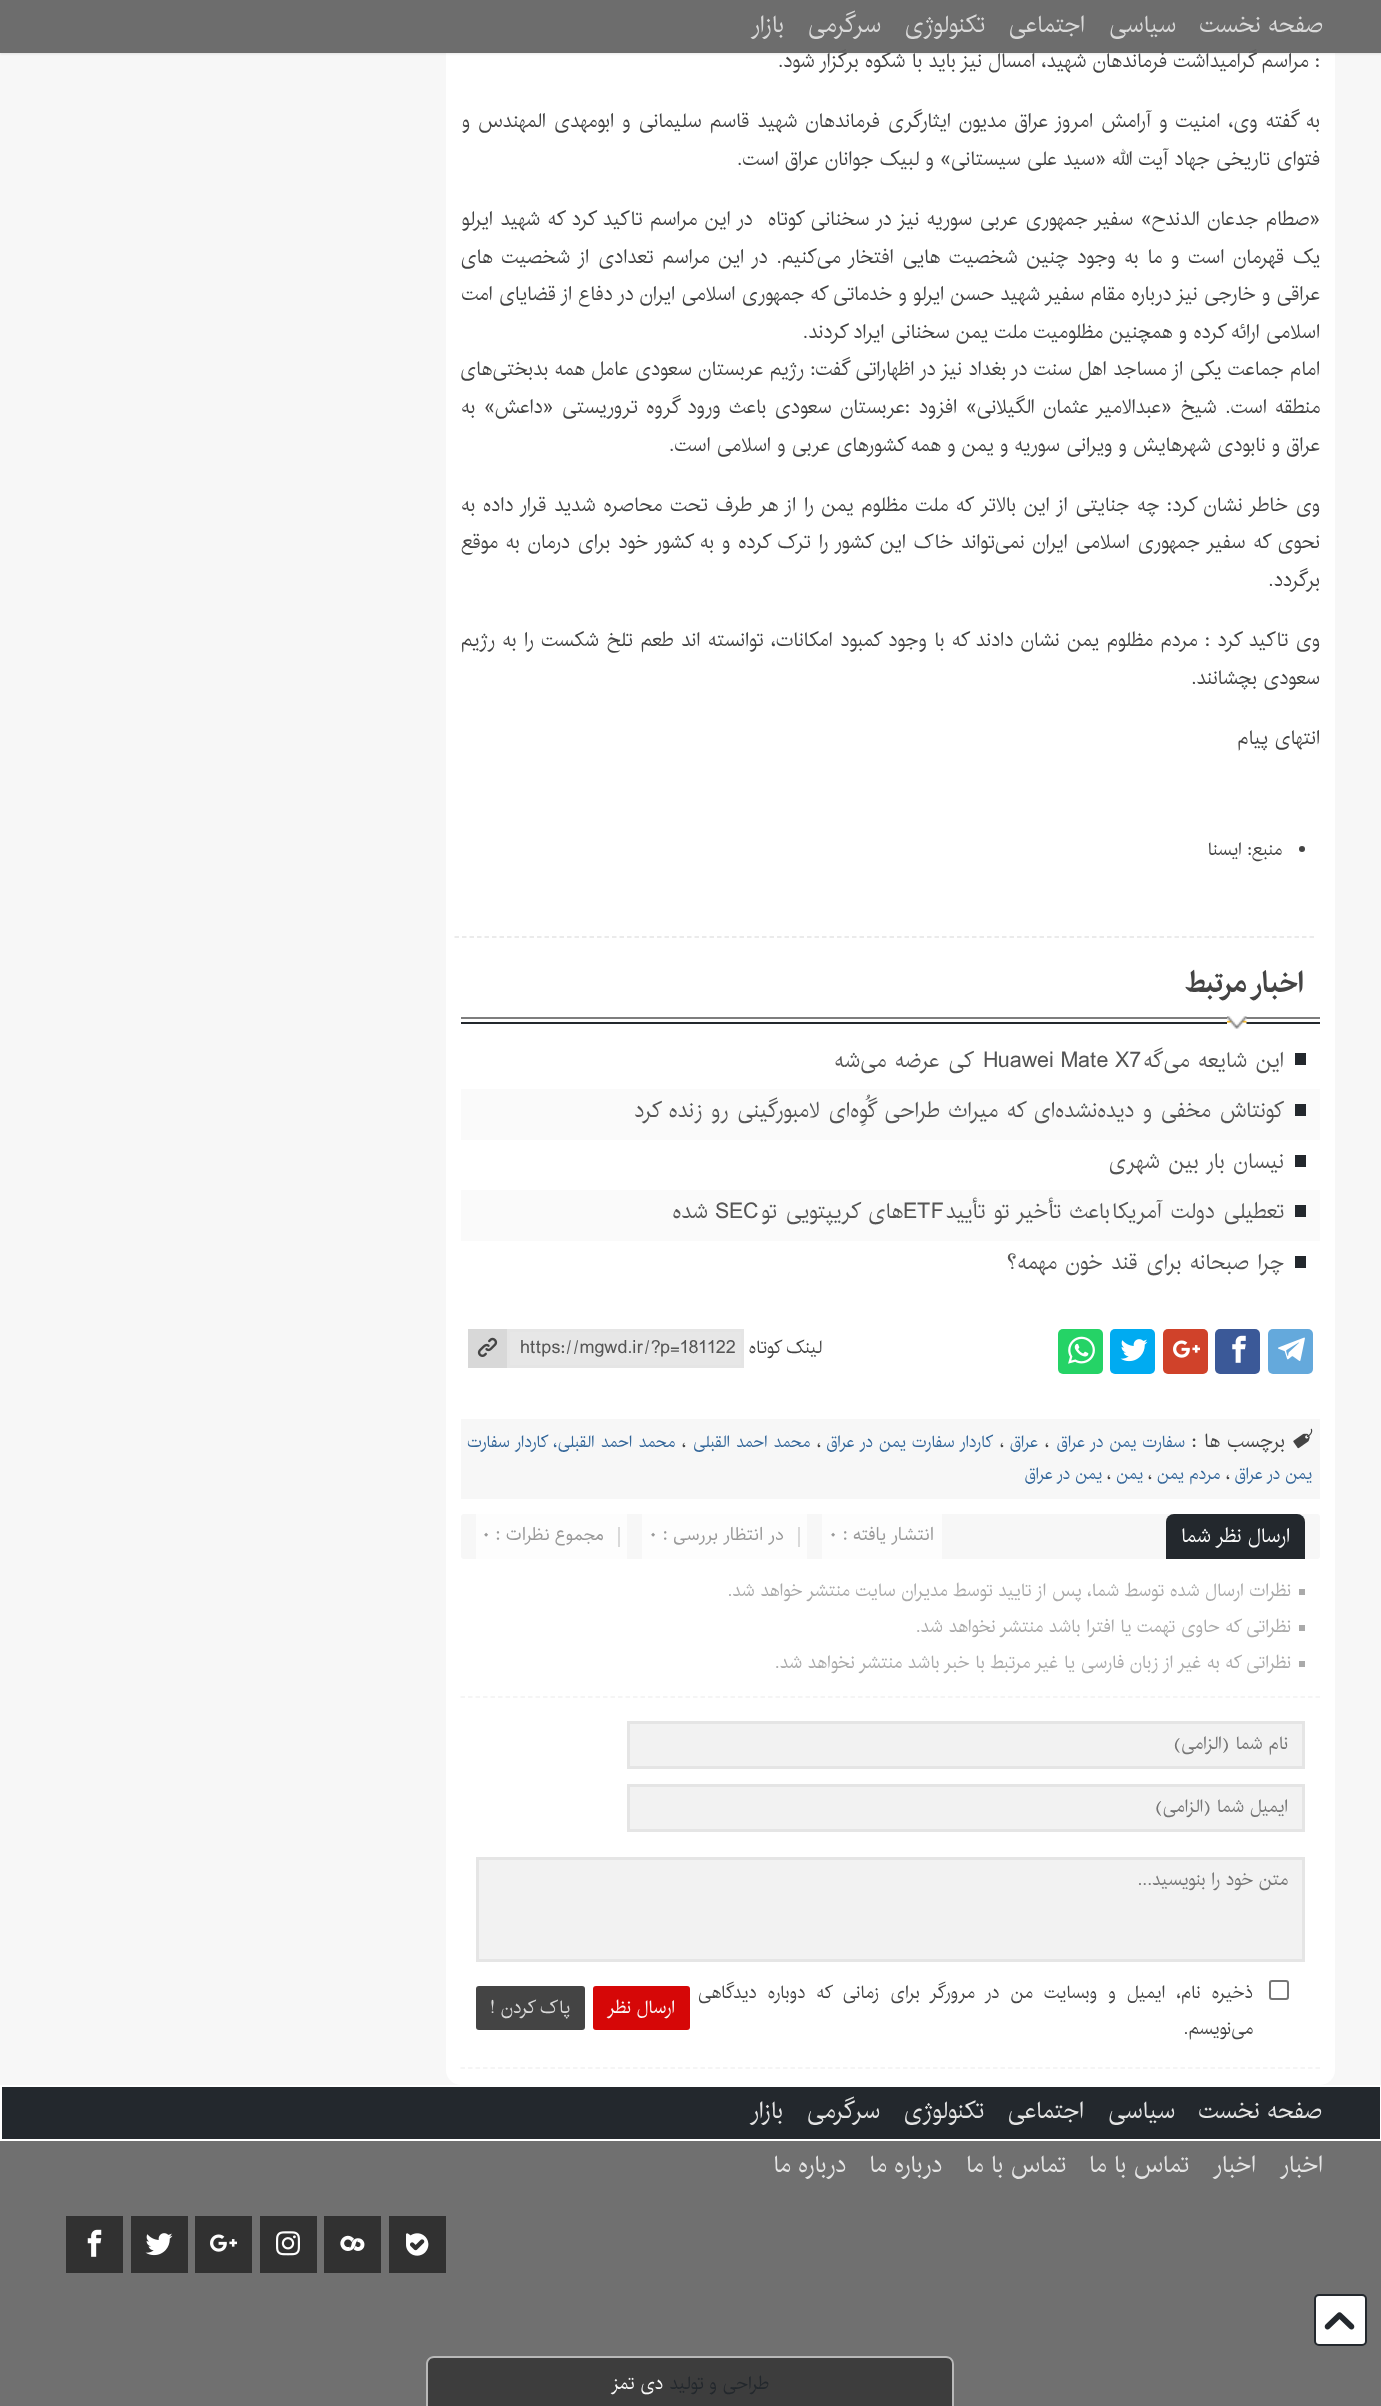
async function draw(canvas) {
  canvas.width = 1381
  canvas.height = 2406
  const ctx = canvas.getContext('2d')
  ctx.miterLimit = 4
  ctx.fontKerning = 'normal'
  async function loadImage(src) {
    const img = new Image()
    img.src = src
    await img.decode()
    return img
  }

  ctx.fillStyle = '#f7f7f7'
  ctx.fillRect(0, 0, 1381, 2406)
  ctx.fillStyle = '#fff'
  ctx.beginPath()
  ctx.roundRect(446, -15, 889, 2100, 15)
  ctx.fill()
  ctx.save()
  ctx.beginPath()
  ctx.moveTo(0, 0)
  ctx.lineTo(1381, 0)
  ctx.lineTo(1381, 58)
  ctx.lineTo(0, 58)
  ctx.closePath()
  ctx.moveTo(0, 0)
  ctx.lineTo(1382, 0)
  ctx.lineTo(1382, 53)
  ctx.lineTo(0, 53)
  ctx.closePath()
  ctx.clip('evenodd')
  ctx.fillStyle = '#00000017'
  ctx.filter = 'blur(1px)'
  ctx.beginPath()
  ctx.rect(0, 2, 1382, 52)
  ctx.fill()
  ctx.filter = 'none'
  ctx.restore()
  ctx.direction = 'rtl'
  ctx.font = '19.8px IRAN'
  ctx.fillStyle = '#444'
  ctx.fillText(': مراسم گرامیداشت فرماندهان شهید، امسال نیز باید با شکوه برگزار شود.', 1320, 67)
  ctx.fillStyle = '#646464f0'
  ctx.fillRect(0, 0, 1381, 53)
  ctx.font = '23.5px IRAN'
  ctx.fillStyle = '#d9d9d9'
  ctx.fillText('صفحه نخست', 1323, 32)
  ctx.fillText('سیاسی', 1176, 32)
  ctx.fillText('اجتماعی', 1085, 32)
  ctx.fillText('تکنولوژی', 985, 32)
  ctx.fillText('سرگرمی', 881, 32)
  ctx.fillText('بازار', 784, 32)
  ctx.wordSpacing = '1.8px'
  ctx.font = '19.8px IRAN'
  ctx.fillStyle = '#444'
  ctx.fillText('به گفته وی، امنیت و آرامش امروز عراق مدیون ایثارگری فرماندهان شهید قاسم سلیمانی و ابومهدی المهندس و', 1320, 127)
  ctx.wordSpacing = '0px'
  ctx.fillText('فتوای تاریخی جهاد آیت الله «سید علی سیستانی» و لبیک جوانان عراق است.', 1320, 165)
  ctx.wordSpacing = '1.3px'
  ctx.fillText('«صطام جدعان الدندح» سفیر جمهوری عربی سوریه نیز در سخنانی کوتاه  در این مراسم تاکید کرد که شهید ایرلو', 1320, 225)
  ctx.wordSpacing = '2.6px'
  ctx.fillText('یک قهرمان است و ما به وجود چنین شخصیت هایی افتخار می‌کنیم. در این مراسم تعدادی از شخصیت های', 1320, 263)
  ctx.wordSpacing = '0px'
  ctx.fillText('عراقی و خارجی نیز درباره مقام سفیر شهید حسن ایرلو و خدماتی که جمهوری اسلامی ایران در دفاع از قضایای امت', 1320, 300)
  ctx.fillText('اسلامی ارائه کرده و همچنین مظلومیت ملت یمن سخنانی ایراد کردند.', 1320, 338)
  ctx.wordSpacing = '0.2px'
  ctx.fillText('امام جماعت یکی از مساجد اهل سنت در بغداد نیز در اظهاراتی گفت: رژیم عربستان سعودی عامل همه بدبختی‌های', 1320, 375)
  ctx.wordSpacing = '2.25px'
  ctx.fillText('منطقه است. شیخ «عبدالامیر عثمان الگیلانی» افزود :عربستان سعودی باعث ورود گروه تروریستی «داعش» به', 1320, 413)
  ctx.wordSpacing = '0px'
  ctx.fillText('عراق و نابودی شهرهایش و ویرانی سوریه و یمن و همه کشورهای عربی و اسلامی است.', 1320, 451)
  ctx.wordSpacing = '1.6px'
  ctx.fillText('وی خاطر نشان کرد: چه جنایتی از این بالاتر که ملت مظلوم یمن را از هر طرف تحت محاصره شدید قرار داده به', 1320, 511)
  ctx.fillText('نحوی که سفیر جمهوری اسلامی ایران نمی‌تواند خاک این کشور را ترک کرده و به کشور خود برای درمان به موقع', 1320, 548)
  ctx.wordSpacing = '0px'
  ctx.fillText('برگردد.', 1320, 586)
  ctx.wordSpacing = '1.25px'
  ctx.fillText('وی تاکید کرد : مردم مظلوم یمن نشان دادند که با وجود کمبود امکانات، توانسته اند طعم تلخ شکست را به رژیم', 1320, 646)
  ctx.wordSpacing = '0px'
  ctx.fillText('سعودی بچشانند.', 1320, 684)
  ctx.fillText('انتهای پیام', 1320, 744)
  ctx.beginPath()
  ctx.arc(1302, 849, 3, 0, 2 * Math.PI)
  ctx.fill()
  ctx.font = '18px IRAN'
  ctx.fillText('منبع: ایسنا', 1282, 855)
  ctx.beginPath()
  ctx.moveTo(454.5, 937)
  ctx.lineTo(1314, 937)
  ctx.strokeStyle = '#e5e5e5'
  ctx.lineWidth = 1.5
  ctx.setLineDash([4.5, 3])
  ctx.stroke()
  ctx.fillStyle = '#23282d'
  ctx.fillRect(461, 1022, 859, 2)
  ctx.fillStyle = '#7e7e7e'
  ctx.fillRect(461, 1017, 859, 2)
  ctx.font = 'bold 29px IRAN'
  ctx.fillStyle = '#444'
  ctx.fillText('اخبار مرتبط', 1304, 992)
  ctx.drawImage(await loadImage('image0.png'), 1227, 1016, 20, 13)
  ctx.fillStyle = '#23282d'
  ctx.fillRect(1295, 1053, 11, 12)
  ctx.letterSpacing = '-0.3px'
  ctx.wordSpacing = '2px'
  ctx.font = '21.5px IRAN'
  ctx.fillStyle = '#555'
  ctx.fillText('این شایعه می‌گه', 1284, 1067)
  ctx.wordSpacing = '0px'
  ctx.direction = 'ltr'
  ctx.fillText('Huawei Mate X7', 983, 1067)
  ctx.wordSpacing = '2px'
  ctx.direction = 'rtl'
  ctx.fillText('کی عرضه می‌شه', 974, 1067)
  ctx.fillStyle = '#fafafa'
  ctx.fillRect(461, 1089, 859, 51)
  ctx.fillStyle = '#23282d'
  ctx.fillRect(1295, 1104, 11, 12)
  ctx.fillStyle = '#555'
  ctx.fillText('کونتاش مخفی و دیده‌نشده‌ای که میراث طراحی گُوِه‌ای لامبورگینی رو زنده کرد', 1284, 1117)
  ctx.fillStyle = '#23282d'
  ctx.fillRect(1295, 1155, 11, 12)
  ctx.fillStyle = '#555'
  ctx.fillText('نیسان بار بین شهری', 1284, 1168)
  ctx.fillStyle = '#fafafa'
  ctx.fillRect(461, 1190, 859, 51)
  ctx.fillStyle = '#23282d'
  ctx.fillRect(1295, 1205, 11, 12)
  ctx.fillStyle = '#555'
  ctx.fillText('تعطیلی دولت آمریکا', 1284, 1218)
  ctx.wordSpacing = '1.5px'
  ctx.fillText('باعث تأخیر تو تأیید', 1110, 1218)
  ctx.wordSpacing = '0px'
  ctx.direction = 'ltr'
  ctx.fillText('ETF', 903, 1218)
  ctx.wordSpacing = '2px'
  ctx.direction = 'rtl'
  ctx.fillText('های کریپتویی تو', 903, 1218)
  ctx.wordSpacing = '0px'
  ctx.direction = 'ltr'
  ctx.fillText('SEC', 715, 1218)
  ctx.direction = 'rtl'
  ctx.fillText('شده', 708, 1218)
  ctx.fillStyle = '#23282d'
  ctx.fillRect(1295, 1256, 11, 12)
  ctx.wordSpacing = '1.75px'
  ctx.fillStyle = '#555'
  ctx.fillText('چرا صبحانه برای قند خون مهمه؟', 1284, 1269)
  ctx.fillStyle = '#64a9dc'
  ctx.beginPath()
  ctx.roundRect(1268, 1329, 45, 45, 5)
  ctx.fill()
  ctx.drawImage(await loadImage('image1.png'), 1278, 1337, 27, 24)
  ctx.fillStyle = '#3b5998'
  ctx.beginPath()
  ctx.roundRect(1215, 1329, 45, 45, 5)
  ctx.fill()
  ctx.drawImage(await loadImage('image2.png'), 1232, 1335, 14, 28)
  ctx.fillStyle = '#d0422a'
  ctx.beginPath()
  ctx.roundRect(1163, 1329, 45, 45, 5)
  ctx.fill()
  ctx.drawImage(await loadImage('image3.png'), 1173, 1340, 27, 18)
  ctx.fillStyle = '#00abf1'
  ctx.beginPath()
  ctx.roundRect(1110, 1329, 45, 45, 5)
  ctx.fill()
  ctx.drawImage(await loadImage('image4.png'), 1120, 1339, 28, 23)
  ctx.fillStyle = '#25d366'
  ctx.beginPath()
  ctx.roundRect(1058, 1329, 45, 45, 5)
  ctx.fill()
  ctx.drawImage(await loadImage('image5.png'), 1068, 1336, 27, 28)
  ctx.letterSpacing = '0px'
  ctx.wordSpacing = '0px'
  ctx.font = '18px IRAN'
  ctx.fillStyle = '#444'
  ctx.fillText('لینک کوتاه', 822, 1353)
  ctx.fillStyle = '#e7e7e7'
  ctx.beginPath()
  ctx.rect(508.5, 1330.5, 234, 36)
  ctx.fill()
  ctx.lineWidth = 3
  ctx.setLineDash([])
  ctx.stroke()
  ctx.direction = 'ltr'
  ctx.fillStyle = '#555'
  ctx.fillText('https://mgwd.ir/?p=181122', 520, 1353)
  ctx.fillStyle = '#d8d8d8'
  ctx.fillRect(468, 1329, 39, 39)
  ctx.drawImage(await loadImage('image6.png'), 477, 1337, 21, 20)
  ctx.fillStyle = '#f7f7f7'
  ctx.fillRect(461, 1419, 859, 80)
  ctx.drawImage(await loadImage('image7.png'), 1293, 1428, 20, 21)
  ctx.wordSpacing = '1.25px'
  ctx.direction = 'rtl'
  ctx.font = '19.5px IRAN'
  ctx.fillStyle = '#444'
  ctx.fillText('برچسب ها :', 1285, 1447)
  ctx.wordSpacing = '1px'
  ctx.font = '16.5px IRAN'
  ctx.fillStyle = '#369'
  ctx.fillText('سفارت یمن در عراق', 1185, 1447)
  ctx.wordSpacing = '0px'
  ctx.direction = 'ltr'
  ctx.fillStyle = '#444'
  ctx.fillText('،', 1045, 1447)
  ctx.direction = 'rtl'
  ctx.fillStyle = '#369'
  ctx.fillText('عراق', 1038, 1447)
  ctx.direction = 'ltr'
  ctx.fillStyle = '#444'
  ctx.fillText('،', 1000, 1447)
  ctx.wordSpacing = '1px'
  ctx.direction = 'rtl'
  ctx.fillStyle = '#369'
  ctx.fillText('کاردار سفارت یمن در عراق', 993, 1447)
  ctx.wordSpacing = '0px'
  ctx.direction = 'ltr'
  ctx.fillStyle = '#444'
  ctx.fillText('،', 817, 1447)
  ctx.wordSpacing = '1px'
  ctx.direction = 'rtl'
  ctx.fillStyle = '#369'
  ctx.fillText('محمد احمد القبلی', 810, 1447)
  ctx.wordSpacing = '0px'
  ctx.direction = 'ltr'
  ctx.fillStyle = '#444'
  ctx.fillText('،', 682, 1447)
  ctx.wordSpacing = '1.25px'
  ctx.direction = 'rtl'
  ctx.fillStyle = '#369'
  ctx.fillText('محمد احمد القبلی، کاردار سفارت', 675, 1447)
  ctx.wordSpacing = '0px'
  ctx.fillText('یمن در عراق', 1312, 1479)
  ctx.direction = 'ltr'
  ctx.fillStyle = '#444'
  ctx.fillText('،', 1226, 1479)
  ctx.direction = 'rtl'
  ctx.fillStyle = '#369'
  ctx.fillText('مردم یمن', 1220, 1479)
  ctx.direction = 'ltr'
  ctx.fillStyle = '#444'
  ctx.fillText('،', 1148, 1479)
  ctx.direction = 'rtl'
  ctx.fillStyle = '#369'
  ctx.fillText('یمن', 1143, 1479)
  ctx.direction = 'ltr'
  ctx.fillStyle = '#444'
  ctx.fillText('،', 1107, 1479)
  ctx.direction = 'rtl'
  ctx.fillStyle = '#369'
  ctx.fillText('یمن در عراق', 1102, 1479)
  ctx.fillStyle = '#f7f7f7'
  ctx.beginPath()
  ctx.roundRect(461, 1514, 859, 45, 3)
  ctx.fill()
  ctx.fillStyle = '#23282d'
  ctx.beginPath()
  ctx.roundRect(1166, 1514, 139, 45, [8, 8, 0, 0])
  ctx.fill()
  ctx.font = '19.8px IRAN'
  ctx.fillStyle = '#fafafa'
  ctx.fillText('ارسال نظر شما', 1290, 1542)
  ctx.fillStyle = '#fdfdfd'
  ctx.fillRect(822, 1514, 120, 45)
  ctx.font = '18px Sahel'
  ctx.fillStyle = '#999'
  ctx.fillText('انتشار یافته :', 934, 1540)
  ctx.direction = 'ltr'
  ctx.fillText('۰', 829, 1540)
  ctx.fillStyle = '#fdfdfd'
  ctx.fillRect(642, 1514, 165, 45)
  ctx.fillStyle = '#d9d9d9'
  ctx.fillRect(798, 1527, 2, 20)
  ctx.direction = 'rtl'
  ctx.fillStyle = '#999'
  ctx.fillText('در انتظار بررسی :', 784, 1540)
  ctx.direction = 'ltr'
  ctx.fillText('0', 649, 1540)
  ctx.fillStyle = '#fdfdfd'
  ctx.fillRect(476, 1514, 151, 45)
  ctx.fillStyle = '#d9d9d9'
  ctx.fillRect(618, 1527, 2, 20)
  ctx.direction = 'rtl'
  ctx.fillStyle = '#999'
  ctx.fillText('مجموع نظرات :', 604, 1540)
  ctx.direction = 'ltr'
  ctx.fillText('0', 482, 1540)
  ctx.beginPath()
  ctx.moveTo(460.5, 1697)
  ctx.lineTo(1320, 1697)
  ctx.strokeStyle = '#f2f2f2'
  ctx.lineWidth = 1.5
  ctx.setLineDash([4.5, 3])
  ctx.stroke()
  ctx.fillStyle = '#aaa'
  ctx.fillRect(1299, 1589, 6, 6)
  ctx.direction = 'rtl'
  ctx.font = '18px IRAN'
  ctx.fillText('نظرات ارسال شده توسط شما، پس از تایید توسط مدیران سایت منتشر خواهد شد.', 1291, 1596)
  ctx.fillRect(1299, 1625, 6, 6)
  ctx.fillText('نظراتی که حاوی تهمت یا افترا باشد منتشر نخواهد شد.', 1291, 1632)
  ctx.fillRect(1299, 1661, 6, 6)
  ctx.fillText('نظراتی که به غیر از زبان فارسی یا غیر مرتبط با خبر باشد منتشر نخواهد شد.', 1291, 1668)
  ctx.beginPath()
  ctx.moveTo(460.5, 2068)
  ctx.lineTo(1320, 2068)
  ctx.stroke()
  ctx.fillStyle = '#f2f2f2'
  ctx.beginPath()
  ctx.rect(628.5, 1722.5, 675, 45)
  ctx.fill()
  ctx.strokeStyle = '#e5e5e5'
  ctx.lineWidth = 3
  ctx.setLineDash([])
  ctx.stroke()
  ctx.fillStyle = '#757575'
  ctx.fillText('نام شما (الزامی)', 1288, 1749)
  ctx.fillStyle = '#f2f2f2'
  ctx.beginPath()
  ctx.rect(628.5, 1785.5, 675, 45)
  ctx.fill()
  ctx.stroke()
  ctx.fillStyle = '#757575'
  ctx.fillText('ایمیل شما (الزامی)', 1288, 1812)
  ctx.fillStyle = '#f2f2f2'
  ctx.beginPath()
  ctx.rect(477.5, 1858.5, 826, 102)
  ctx.fill()
  ctx.stroke()
  ctx.fillStyle = '#757575'
  ctx.fillText('متن خود را بنویسید...', 1288, 1885)
  ctx.beginPath()
  ctx.roundRect(1270, 1981, 18, 18, 2)
  ctx.strokeStyle = '#767676'
  ctx.lineWidth = 2
  ctx.stroke()
  ctx.wordSpacing = '5.5px'
  ctx.fillStyle = '#444'
  ctx.fillText('ذخیره نام، ایمیل و وبسایت من در مرورگر برای زمانی که دوباره دیدگاهی', 1253, 1998)
  ctx.wordSpacing = '0px'
  ctx.fillText('می‌نویسم.', 1253, 2034)
  ctx.fillStyle = '#d60707'
  ctx.beginPath()
  ctx.roundRect(593, 1986, 97, 44, 3)
  ctx.fill()
  ctx.fillStyle = '#fafafa'
  ctx.fillText('ارسال نظر', 675, 2013)
  ctx.fillStyle = '#444'
  ctx.beginPath()
  ctx.roundRect(476, 1986, 109, 44, 3)
  ctx.fill()
  ctx.fillStyle = '#d9d9d9'
  ctx.fillText('پاک کردن !', 570, 2013)
  ctx.fillStyle = '#707070'
  ctx.fillRect(0, 2141, 1381, 265)
  ctx.fillStyle = '#fff'
  ctx.beginPath()
  ctx.roundRect(1315, 2295, 51, 50, 4)
  ctx.fill()
  ctx.strokeStyle = '#23282d'
  ctx.stroke()
  ctx.drawImage(await loadImage('image8.png'), 1324, 2312, 31, 18)
  ctx.fillStyle = '#23282d'
  ctx.beginPath()
  ctx.rect(1, 2086, 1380, 54)
  ctx.fill()
  ctx.strokeStyle = '#fff'
  ctx.stroke()
  ctx.font = '23.5px IRAN'
  ctx.fillStyle = '#e5e5e5'
  ctx.fillText('صفحه نخست', 1322, 2118)
  ctx.fillText('سیاسی', 1175, 2118)
  ctx.fillText('اجتماعی', 1084, 2118)
  ctx.fillText('تکنولوژی', 984, 2118)
  ctx.fillText('سرگرمی', 880, 2118)
  ctx.fillText('بازار', 783, 2118)
  ctx.fillText('اخبار', 1323, 2172)
  ctx.fillText('اخبار', 1256, 2172)
  ctx.fillText('تماس با ما', 1189, 2172)
  ctx.fillText('تماس با ما', 1066, 2172)
  ctx.fillText('درباره ما', 942, 2172)
  ctx.fillText('درباره ما', 846, 2172)
  ctx.fillStyle = '#313131'
  ctx.fillRect(389, 2216, 57, 57)
  ctx.drawImage(await loadImage('image9.png'), 406, 2233, 23, 23)
  ctx.fillRect(324, 2216, 57, 57)
  ctx.drawImage(await loadImage('image10.png'), 340, 2235, 25, 16)
  ctx.fillRect(260, 2216, 57, 57)
  ctx.drawImage(await loadImage('image11.png'), 276, 2231, 24, 25)
  ctx.fillRect(195, 2216, 57, 57)
  ctx.drawImage(await loadImage('image12.png'), 210, 2234, 27, 18)
  ctx.fillRect(131, 2216, 57, 57)
  ctx.drawImage(await loadImage('image13.png'), 145, 2233, 28, 23)
  ctx.fillRect(66, 2216, 57, 57)
  ctx.drawImage(await loadImage('image14.png'), 87, 2229, 15, 28)
  ctx.fillStyle = '#3d3d3d'
  ctx.beginPath()
  ctx.moveTo(434, 2357)
  ctx.lineTo(946, 2357)
  ctx.bezierCurveTo(950.5, 2357, 954, 2360.5, 954, 2365)
  ctx.lineTo(954, 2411)
  ctx.lineTo(426, 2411)
  ctx.lineTo(426, 2365)
  ctx.bezierCurveTo(426, 2360.5, 429.5, 2357, 434, 2357)
  ctx.closePath()
  ctx.fill()
  ctx.fillStyle = '#b8b8b8'
  ctx.beginPath()
  ctx.moveTo(434, 2356)
  ctx.lineTo(946, 2356)
  ctx.bezierCurveTo(951, 2356, 954, 2360, 954, 2364)
  ctx.lineTo(954, 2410)
  ctx.lineTo(426, 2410)
  ctx.lineTo(426, 2364)
  ctx.bezierCurveTo(426, 2360, 429, 2356, 434, 2356)
  ctx.closePath()
  ctx.moveTo(434, 2358)
  ctx.lineTo(946, 2358)
  ctx.bezierCurveTo(950, 2358, 952, 2361, 952, 2364)
  ctx.lineTo(952, 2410)
  ctx.lineTo(428, 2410)
  ctx.lineTo(428, 2364)
  ctx.bezierCurveTo(428, 2361, 430, 2358, 434, 2358)
  ctx.closePath()
  ctx.fill('evenodd')
  ctx.font = '18px IRAN'
  ctx.fillStyle = '#23282d'
  ctx.fillText('طراحی و تولید', 769, 2389)
  ctx.fillStyle = '#fafafa'
  ctx.fillText('دی تمز', 663, 2389)
}

draw(document.querySelector('canvas'))
